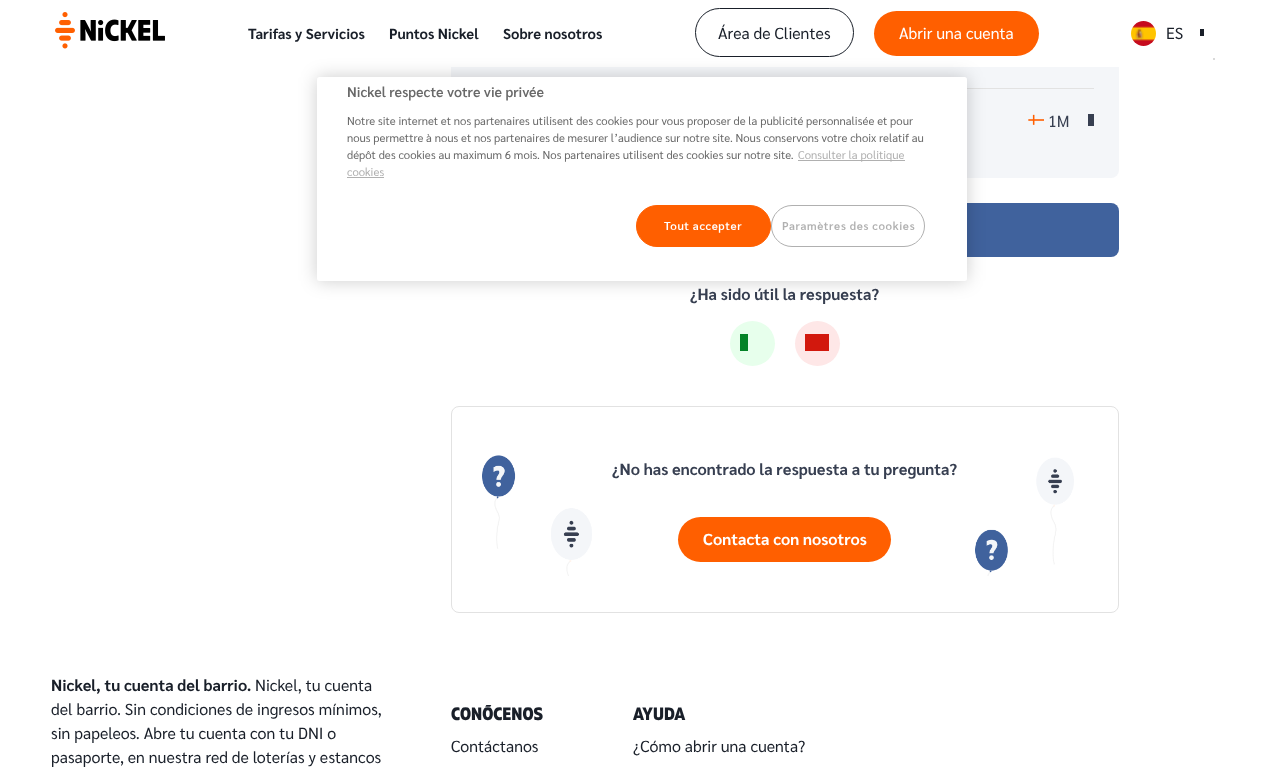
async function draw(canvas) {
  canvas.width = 1269
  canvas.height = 770
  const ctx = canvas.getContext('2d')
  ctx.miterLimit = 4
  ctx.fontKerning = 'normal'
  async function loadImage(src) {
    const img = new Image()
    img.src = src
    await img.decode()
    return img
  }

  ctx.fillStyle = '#fff'
  ctx.fillRect(0, 0, 1269, 770)
  ctx.fillStyle = '#f4f6f9'
  ctx.beginPath()
  ctx.roundRect(451, -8, 668, 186, 8)
  ctx.fill()
  ctx.fillStyle = '#fff'
  ctx.fillRect(451, 0, 668, 67)
  ctx.drawImage(await loadImage('image0.png'), 55, 12, 110, 37)
  ctx.font = 'bold 14.5px Sarabun'
  ctx.fillStyle = '#191f29'
  ctx.fillText('Tarifas y Servicios', 248, 39)
  ctx.fillText('Puntos Nickel', 389, 39)
  ctx.fillText('Sobre nosotros', 503, 39)
  ctx.beginPath()
  ctx.roundRect(695.5, 8.5, 158, 48, 24)
  ctx.strokeStyle = '#191f29'
  ctx.stroke()
  ctx.font = '16px Sarabun'
  ctx.fillText('Área de Clientes', 718, 39)
  ctx.fillStyle = '#ff5f00'
  ctx.beginPath()
  ctx.roundRect(874, 11, 165, 45, 22.5)
  ctx.fill()
  ctx.fillStyle = '#fff'
  ctx.fillText('Abrir una cuenta', 899, 39)
  ctx.drawImage(await loadImage('image1.png'), 1131, 21, 25, 25)
  ctx.fillStyle = '#191f29'
  ctx.fillText('ES', 1166, 39)
  ctx.fillRect(1200, 29, 4, 7)
  ctx.fillStyle = '#ccc'
  ctx.beginPath()
  ctx.arc(1214, 59, 1, 0, 2 * Math.PI)
  ctx.fill()
  ctx.fillStyle = '#e2e2e2'
  ctx.fillRect(967, 88, 127, 1)
  ctx.drawImage(await loadImage('image2.png'), 1028, 114, 16, 11)
  ctx.fillStyle = '#373f51'
  ctx.fillText('1M', 1048, 127)
  ctx.fillRect(1088, 114, 6, 12)
  ctx.fillStyle = '#40629d'
  ctx.beginPath()
  ctx.roundRect(451, 203, 668, 54, 8)
  ctx.fill()
  ctx.font = 'bold 16px Sarabun'
  ctx.fillStyle = '#373f51'
  ctx.fillText('¿Ha sido útil la respuesta?', 690, 300)
  ctx.fillStyle = '#e7ffec'
  ctx.beginPath()
  ctx.arc(752.5, 343.5, 22.5, 0, 2 * Math.PI)
  ctx.fill()
  ctx.fillStyle = '#048327'
  ctx.fillRect(740, 334, 8, 17)
  ctx.fillStyle = '#fee7e7'
  ctx.beginPath()
  ctx.arc(817.5, 343.5, 22.5, 0, 2 * Math.PI)
  ctx.fill()
  ctx.fillStyle = '#d2180d'
  ctx.fillRect(805, 334, 24, 17)
  ctx.drawImage(await loadImage('image3.png'), 482, 455, 592, 121)
  ctx.beginPath()
  ctx.roundRect(451.5, 406.5, 667, 206, 7.5)
  ctx.strokeStyle = '#e2e2e2'
  ctx.stroke()
  ctx.fillStyle = '#373f51'
  ctx.fillText('¿No has encontrado la respuesta a tu pregunta?', 612, 475)
  ctx.fillStyle = '#ff5f00'
  ctx.beginPath()
  ctx.roundRect(678, 517, 213, 45, 22.5)
  ctx.fill()
  ctx.fillStyle = '#fff'
  ctx.fillText('Contacta con nosotros', 703, 545)
  ctx.fillStyle = '#191f29'
  ctx.fillText('Nickel, tu cuenta del barrio.', 51, 691)
  ctx.font = '16px Sarabun'
  ctx.fillText('Nickel, tu cuenta', 255, 691)
  ctx.fillText('del barrio. Sin condiciones de ingresos mínimos,', 51, 715)
  ctx.fillText('sin papeleos. Abre tu cuenta con tu DNI o', 51, 739)
  ctx.fillText('pasaporte, en nuestra red de loterías y estancos', 51, 763)
  ctx.font = '800 18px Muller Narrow'
  ctx.fillText('CONÓCENOS', 451, 720)
  ctx.font = '16px Sarabun'
  ctx.fillText('Contáctanos', 451, 752)
  ctx.font = '800 18px Muller Narrow'
  ctx.fillText('AYUDA', 633, 720)
  ctx.font = '16px Sarabun'
  ctx.fillText('¿Cómo abrir una cuenta?', 633, 752)
  ctx.fillStyle = '#00000033'
  ctx.filter = 'blur(9px)'
  ctx.beginPath()
  ctx.roundRect(317, 77, 650, 204, 2.5)
  ctx.fill()
  ctx.filter = 'none'
  ctx.fillStyle = '#fff'
  ctx.beginPath()
  ctx.roundRect(317, 77, 650, 204, 2.5)
  ctx.fill()
  ctx.font = '600 14px Sarabun'
  ctx.fillStyle = '#696969'
  ctx.fillText('Nickel respecte votre vie privée', 347, 97)
  ctx.font = '11.38px Sarabun'
  ctx.fillText('Notre site internet et nos partenaires utilisent des cookies pour vous proposer de la publicité personnalisée et pour', 347, 125)
  ctx.fillText('nous permettre à nous et nos partenaires de mesurer l’audience sur notre site. Nous conservons votre choix relatif au', 347, 142)
  ctx.fillText('dépôt des cookies au maximum 6 mois. Nos partenaires utilisent des cookies sur notre site.', 347, 159)
  ctx.fillStyle = '#b0b0b0'
  ctx.fillRect(798, 160, 107, 1)
  ctx.fillText('Consulter la politique', 798, 159)
  ctx.fillText('cookies', 347, 176)
  ctx.fillRect(347, 177, 37, 1)
  ctx.fillStyle = '#ff5f00'
  ctx.beginPath()
  ctx.roundRect(636.5, 205.5, 134, 41, 20.5)
  ctx.fill()
  ctx.strokeStyle = '#ff5f00'
  ctx.stroke()
  ctx.letterSpacing = '0.6px'
  ctx.font = '600 11.38px Sarabun'
  ctx.fillStyle = '#fff'
  ctx.fillText('Tout accepter', 664, 230)
  ctx.beginPath()
  ctx.roundRect(771.5, 205.5, 153, 41, 20.5)
  ctx.strokeStyle = '#b0b0b0'
  ctx.stroke()
  ctx.fillStyle = '#b0b0b0'
  ctx.fillText('Paramètres des cookies', 782, 230)
}

draw(document.querySelector('canvas'))
